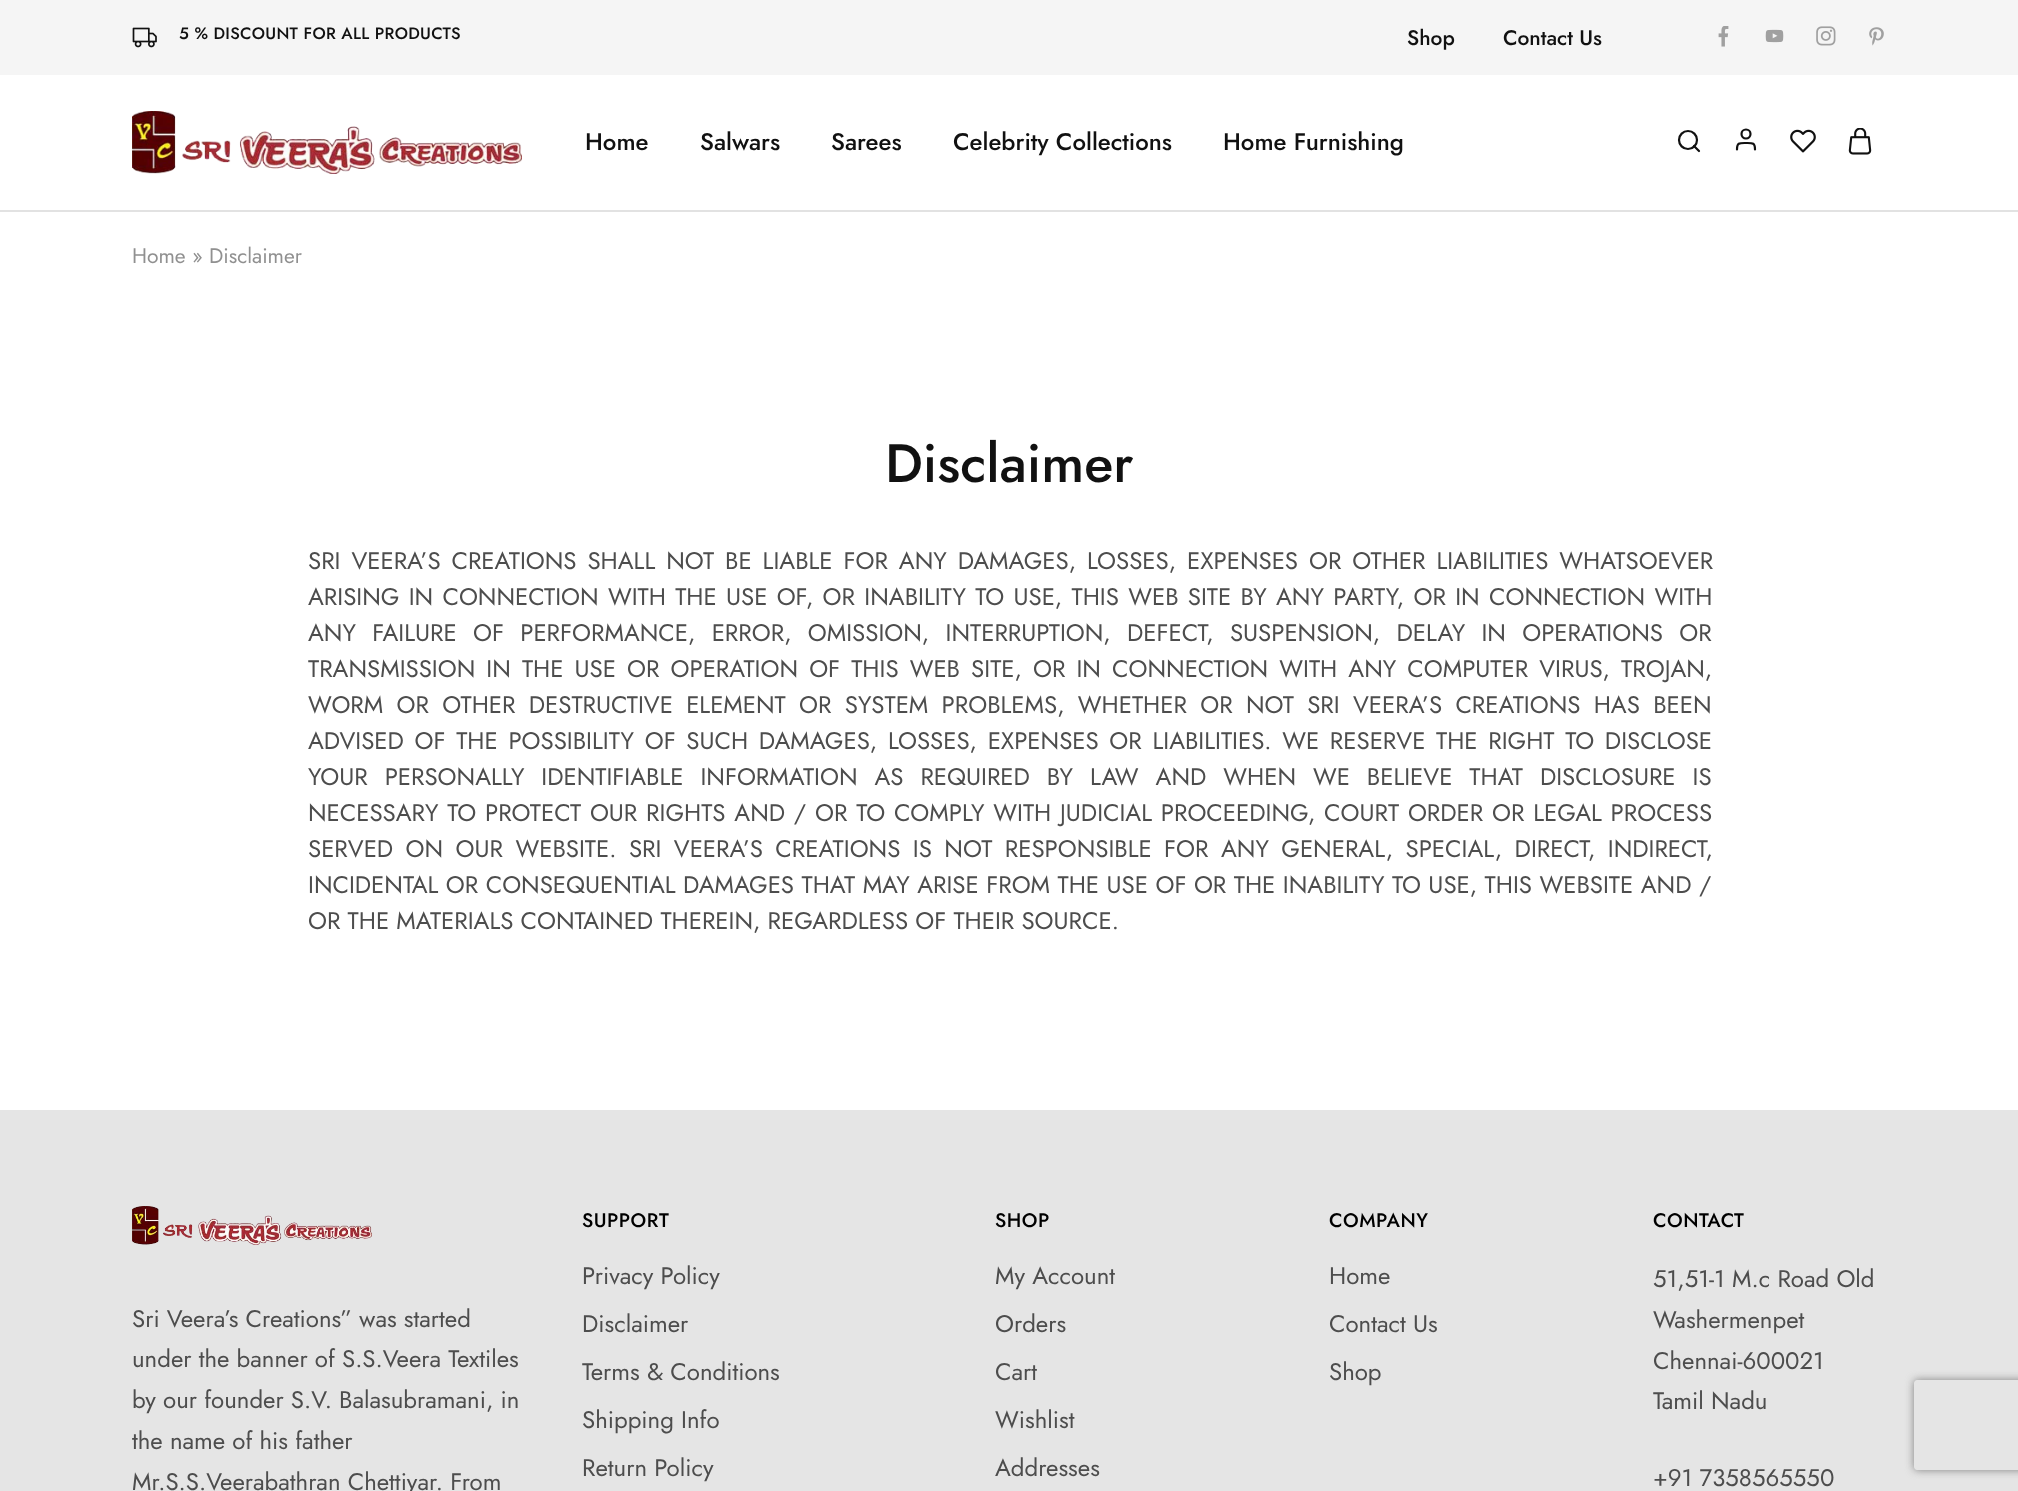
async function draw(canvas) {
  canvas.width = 2018
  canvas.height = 1491
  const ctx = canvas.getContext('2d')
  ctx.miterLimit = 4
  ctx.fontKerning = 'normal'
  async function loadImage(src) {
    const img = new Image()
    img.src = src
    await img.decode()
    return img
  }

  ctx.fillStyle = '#fff'
  ctx.fillRect(0, 0, 2018, 1491)
  ctx.fillStyle = '#f5f5f5'
  ctx.fillRect(0, 0, 2018, 75)
  ctx.drawImage(await loadImage('image0.png'), 132, 27, 25, 21)
  ctx.letterSpacing = '0.3px'
  ctx.font = '500 16.5px Jost'
  ctx.fillStyle = '#111'
  ctx.fillText('5 % DISCOUNT FOR ALL PRODUCTS', 179, 39)
  ctx.letterSpacing = '0px'
  ctx.font = '500 21px Jost'
  ctx.fillText('Shop', 1407, 45)
  ctx.fillText('Contact Us', 1503, 45)
  ctx.drawImage(await loadImage('image1.png'), 1718, 26, 11, 21)
  ctx.drawImage(await loadImage('image2.png'), 1765, 29, 19, 14)
  ctx.drawImage(await loadImage('image3.png'), 1816, 26, 20, 20)
  ctx.drawImage(await loadImage('image4.png'), 1869, 27, 15, 19)
  ctx.fillStyle = '#e2e2e2'
  ctx.fillRect(0, 210, 2018, 2)
  ctx.drawImage(await loadImage('image5.png'), 132, 111, 390, 63)
  ctx.font = '500 24px Jost'
  ctx.fillStyle = '#111'
  ctx.fillText('Home', 585, 150)
  ctx.fillText('Salwars', 700, 150)
  ctx.fillText('Sarees', 831, 150)
  ctx.fillText('Celebrity Collections', 953, 150)
  ctx.fillText('Home Furnishing', 1223, 150)
  ctx.beginPath()
  ctx.arc(1688, 140, 9, 0, 2 * Math.PI)
  ctx.strokeStyle = '#111'
  ctx.lineWidth = 2.2
  ctx.stroke()
  ctx.beginPath()
  ctx.moveTo(1699, 151)
  ctx.lineTo(1694, 146)
  ctx.lineCap = 'round'
  ctx.lineJoin = 'round'
  ctx.stroke()
  ctx.beginPath()
  ctx.moveTo(1755, 149.5)
  ctx.bezierCurveTo(1755, 142.5, 1752.5, 143, 1746, 143)
  ctx.bezierCurveTo(1739.5, 143, 1737, 142.5, 1737, 149.5)
  ctx.stroke()
  ctx.beginPath()
  ctx.arc(1746, 134, 4.5, 0, 2 * Math.PI)
  ctx.stroke()
  ctx.drawImage(await loadImage('image6.png'), 1790, 129, 26, 24)
  ctx.drawImage(await loadImage('image7.png'), 1848, 128, 24, 27)
  ctx.font = '21px Jost'
  ctx.fillStyle = '#909090'
  ctx.fillText('Home » Disclaimer', 132, 263)
  ctx.font = '500 54px Jost'
  ctx.fillStyle = '#111'
  ctx.fillText('Disclaimer', 885, 482)
  ctx.wordSpacing = '3.75px'
  ctx.font = '24px Jost'
  ctx.fillStyle = '#4d4d4d'
  ctx.fillText('SRI VEERA’S CREATIONS SHALL NOT BE LIABLE FOR ANY DAMAGES, LOSSES, EXPENSES OR OTHER LIABILITIES WHATSOEVER', 308, 569)
  ctx.wordSpacing = '2.1px'
  ctx.fillText('ARISING IN CONNECTION WITH THE USE OF, OR INABILITY TO USE, THIS WEB SITE BY ANY PARTY, OR IN CONNECTION WITH', 308, 605)
  ctx.wordSpacing = '9.1px'
  ctx.fillText('ANY FAILURE OF PERFORMANCE, ERROR, OMISSION, INTERRUPTION, DEFECT, SUSPENSION, DELAY IN OPERATIONS OR', 308, 641)
  ctx.wordSpacing = '3.9px'
  ctx.fillText('TRANSMISSION IN THE USE OR OPERATION OF THIS WEB SITE, OR IN CONNECTION WITH ANY COMPUTER VIRUS, TROJAN,', 308, 677)
  ctx.wordSpacing = '6.1px'
  ctx.fillText('WORM OR OTHER DESTRUCTIVE ELEMENT OR SYSTEM PROBLEMS, WHETHER OR NOT SRI VEERA’S CREATIONS HAS BEEN', 308, 713)
  ctx.wordSpacing = '3.5px'
  ctx.fillText('ADVISED OF THE POSSIBILITY OF SUCH DAMAGES, LOSSES, EXPENSES OR LIABILITIES. WE RESERVE THE RIGHT TO DISCLOSE', 308, 749)
  ctx.wordSpacing = '9.75px'
  ctx.fillText('YOUR PERSONALLY IDENTIFIABLE INFORMATION AS REQUIRED BY LAW AND WHEN WE BELIEVE THAT DISCLOSURE IS', 308, 785)
  ctx.wordSpacing = '1.6px'
  ctx.fillText('NECESSARY TO PROTECT OUR RIGHTS AND / OR TO COMPLY WITH JUDICIAL PROCEEDING, COURT ORDER OR LEGAL PROCESS', 308, 821)
  ctx.wordSpacing = '5.25px'
  ctx.fillText('SERVED ON OUR WEBSITE. SRI VEERA’S CREATIONS IS NOT RESPONSIBLE FOR ANY GENERAL, SPECIAL, DIRECT, INDIRECT,', 308, 857)
  ctx.wordSpacing = '0.3px'
  ctx.fillText('INCIDENTAL OR CONSEQUENTIAL DAMAGES THAT MAY ARISE FROM THE USE OF OR THE INABILITY TO USE, THIS WEBSITE AND /', 308, 893)
  ctx.wordSpacing = '0px'
  ctx.fillText('OR THE MATERIALS CONTAINED THEREIN, REGARDLESS OF THEIR SOURCE.', 308, 929)
  ctx.fillStyle = '#e5e5e5'
  ctx.fillRect(0, 1110, 2018, 381)
  ctx.drawImage(await loadImage('image8.png'), 132, 1206, 240, 39)
  ctx.fillStyle = '#4d4d4d'
  ctx.fillText('Sri Veera’s Creations” was started', 132, 1327)
  ctx.fillText('under the banner of S.S.Veera Textiles', 132, 1367)
  ctx.fillText('by our founder S.V. Balasubramani, in', 132, 1408)
  ctx.fillText('the name of his father', 132, 1449)
  ctx.fillText('Mr.S.S.Veerabathran Chettiyar. From', 132, 1490)
  ctx.letterSpacing = '0.5px'
  ctx.font = '500 19.5px Jost'
  ctx.fillStyle = '#000'
  ctx.fillText('SUPPORT', 582, 1227)
  ctx.letterSpacing = '0px'
  ctx.font = '24px Jost'
  ctx.fillStyle = '#4d4d4d'
  ctx.fillText('Privacy Policy', 582, 1284)
  ctx.fillText('Disclaimer', 582, 1332)
  ctx.fillText('Terms & Conditions', 582, 1380)
  ctx.fillText('Shipping Info', 582, 1428)
  ctx.fillText('Return Policy', 582, 1476)
  ctx.letterSpacing = '0.5px'
  ctx.font = '500 19.5px Jost'
  ctx.fillStyle = '#000'
  ctx.fillText('SHOP', 995, 1227)
  ctx.letterSpacing = '0px'
  ctx.font = '24px Jost'
  ctx.fillStyle = '#4d4d4d'
  ctx.fillText('My Account', 995, 1284)
  ctx.fillText('Orders', 995, 1332)
  ctx.fillText('Cart', 995, 1380)
  ctx.fillText('Wishlist', 995, 1428)
  ctx.fillText('Addresses', 995, 1476)
  ctx.letterSpacing = '0.5px'
  ctx.font = '500 19.5px Jost'
  ctx.fillStyle = '#000'
  ctx.fillText('COMPANY', 1329, 1227)
  ctx.letterSpacing = '0px'
  ctx.font = '24px Jost'
  ctx.fillStyle = '#4d4d4d'
  ctx.fillText('Home', 1329, 1284)
  ctx.fillText('Contact Us', 1329, 1332)
  ctx.fillText('Shop', 1329, 1380)
  ctx.letterSpacing = '0.5px'
  ctx.font = '500 19.5px Jost'
  ctx.fillStyle = '#000'
  ctx.fillText('CONTACT', 1653, 1227)
  ctx.letterSpacing = '0px'
  ctx.font = '24px Jost'
  ctx.fillStyle = '#4d4d4d'
  ctx.fillText('51,51-1 M.c Road Old', 1653, 1287)
  ctx.fillText('Washermenpet', 1653, 1328)
  ctx.fillText('Chennai-600021', 1653, 1369)
  ctx.fillText('Tamil Nadu', 1653, 1409)
  ctx.fillText('+91 7358565550', 1653, 1486)
  ctx.save()
  ctx.beginPath()
  ctx.moveTo(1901, 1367)
  ctx.lineTo(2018, 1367)
  ctx.lineTo(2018, 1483)
  ctx.lineTo(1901, 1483)
  ctx.closePath()
  ctx.moveTo(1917, 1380)
  ctx.lineTo(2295, 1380)
  ctx.bezierCurveTo(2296.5, 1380, 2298, 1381.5, 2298, 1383)
  ctx.lineTo(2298, 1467)
  ctx.bezierCurveTo(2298, 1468.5, 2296.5, 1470, 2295, 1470)
  ctx.lineTo(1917, 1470)
  ctx.bezierCurveTo(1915.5, 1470, 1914, 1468.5, 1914, 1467)
  ctx.lineTo(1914, 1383)
  ctx.bezierCurveTo(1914, 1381.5, 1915.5, 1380, 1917, 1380)
  ctx.closePath()
  ctx.clip('evenodd')
  ctx.fillStyle = '#808080'
  ctx.filter = 'blur(4px)'
  ctx.beginPath()
  ctx.roundRect(1914, 1380, 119, 90, 3)
  ctx.fill()
  ctx.filter = 'none'
  ctx.restore()
}

draw(document.querySelector('canvas'))
